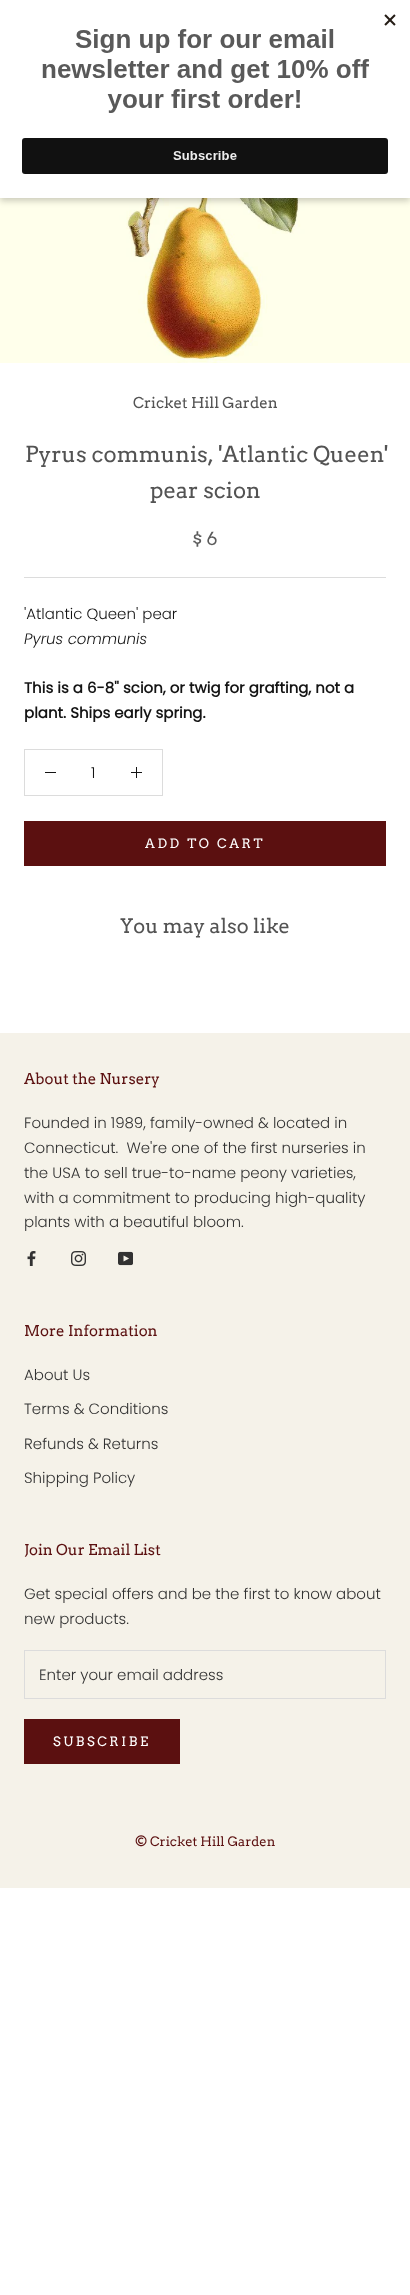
async function draw(canvas) {
  canvas.width = 410
  canvas.height = 2295
  const ctx = canvas.getContext('2d')
  ctx.miterLimit = 4
  ctx.fontKerning = 'normal'
  async function loadImage(src) {
    const img = new Image()
    img.src = src
    await img.decode()
    return img
  }

  ctx.fillStyle = '#fff'
  ctx.fillRect(0, 0, 410, 2295)
  ctx.drawImage(await loadImage('image1.png'), 0, 198, 410, 165)
  ctx.fillStyle = '#00000033'
  ctx.filter = 'blur(3px)'
  ctx.beginPath()
  ctx.rect(0, 3, 410, 198)
  ctx.fill()
  ctx.filter = 'none'
  ctx.fillStyle = '#fff'
  ctx.fillRect(0, 0, 410, 198)
  ctx.drawImage(await loadImage('image0.png'), 22, 14, 374, 160)
  ctx.font = '15px Arvo'
  ctx.fillStyle = '#535353'
  ctx.fillText('Cricket Hill Garden', 133, 408)
  ctx.font = '22px Arvo'
  ctx.fillText('Pyrus communis, \'Atlantic Queen\'', 25, 462)
  ctx.fillText('pear scion', 150, 498)
  ctx.font = '18px Arvo'
  ctx.fillStyle = '#5b5b5b'
  ctx.fillText('$ 6', 192, 545)
  ctx.fillStyle = '#dcdcdc'
  ctx.fillRect(24, 577, 362, 1)
  ctx.font = '300 15px Poppins'
  ctx.fillStyle = '#141414'
  ctx.fillText('\'Atlantic Queen\' pear', 24, 619)
  ctx.font = 'italic 300 15px Poppins'
  ctx.fillText('Pyrus communis', 24, 644)
  ctx.font = 'bold 15px Poppins'
  ctx.fillText('This is a 6-8\'\' scion, or twig for grafting, not a', 24, 693)
  ctx.fillText('plant. Ships early spring.', 24, 718)
  ctx.strokeStyle = '#dcdcdc'
  ctx.strokeRect(24.5, 749.5, 138, 46)
  ctx.fillRect(45, 772, 11, 1)
  ctx.font = '300 15px Poppins'
  ctx.fillText('1', 91, 778)
  ctx.fillRect(136, 767, 1, 11)
  ctx.fillRect(131, 772, 11, 1)
  ctx.strokeStyle = '#5b1010'
  ctx.strokeRect(24.5, 821.5, 361, 44)
  ctx.fillStyle = '#5b1010'
  ctx.fillRect(25, 822, 360, 43)
  ctx.letterSpacing = '2.6px'
  ctx.font = '13px Arvo'
  ctx.fillStyle = '#fff'
  ctx.fillText('ADD TO CART', 145, 848)
  ctx.letterSpacing = '0px'
  ctx.font = '20px Arvo'
  ctx.fillStyle = '#535353'
  ctx.fillText('You may also like', 120, 933)
  ctx.fillStyle = '#f5f2e9'
  ctx.fillRect(0, 1033, 410, 855)
  ctx.font = '15px Arvo'
  ctx.fillStyle = '#5b1010'
  ctx.fillText('About the Nursery', 24, 1084)
  ctx.font = '300 15px Poppins'
  ctx.fillStyle = '#323232'
  ctx.fillText('Founded in 1989, family-owned & located in', 24, 1128)
  ctx.fillText('Connecticut.  We\'re one of the first nurseries in', 24, 1153)
  ctx.fillText('the USA to sell true-to-name peony varieties,', 24, 1178)
  ctx.fillText('with a commitment to producing high-quality', 24, 1203)
  ctx.fillText('plants with a beautiful bloom.', 24, 1227)
  ctx.drawImage(await loadImage('image2.png'), 27, 1251, 9, 15)
  ctx.drawImage(await loadImage('image3.png'), 71, 1251, 15, 15)
  ctx.drawImage(await loadImage('image4.png'), 118, 1251, 15, 15)
  ctx.font = '15px Arvo'
  ctx.fillStyle = '#5b1010'
  ctx.fillText('More Information', 24, 1336)
  ctx.font = '300 15px Poppins'
  ctx.fillStyle = '#323232'
  ctx.fillText('About Us', 24, 1380)
  ctx.fillText('Terms & Conditions', 24, 1414)
  ctx.fillText('Refunds & Returns', 24, 1449)
  ctx.fillText('Shipping Policy', 24, 1483)
  ctx.font = '15px Arvo'
  ctx.fillStyle = '#5b1010'
  ctx.fillText('Join Our Email List', 24, 1555)
  ctx.font = '300 15px Poppins'
  ctx.fillStyle = '#323232'
  ctx.fillText('Get special offers and be the first to know about', 24, 1599)
  ctx.fillText('new products.', 24, 1624)
  ctx.strokeStyle = '#dcdcdc'
  ctx.strokeRect(24.5, 1650.5, 361, 48)
  ctx.fillText('Enter your email address', 39, 1680)
  ctx.strokeStyle = '#5b1010'
  ctx.strokeRect(24.5, 1719.5, 155, 44)
  ctx.fillStyle = '#5b1010'
  ctx.fillRect(25, 1720, 154, 43)
  ctx.letterSpacing = '2.6px'
  ctx.font = '13px Arvo'
  ctx.fillStyle = '#fff'
  ctx.fillText('SUBSCRIBE', 53, 1746)
  ctx.letterSpacing = '0px'
  ctx.fillStyle = '#5b1010'
  ctx.fillText('© Cricket Hill Garden', 135, 1846)
}

draw(document.querySelector('canvas'))
